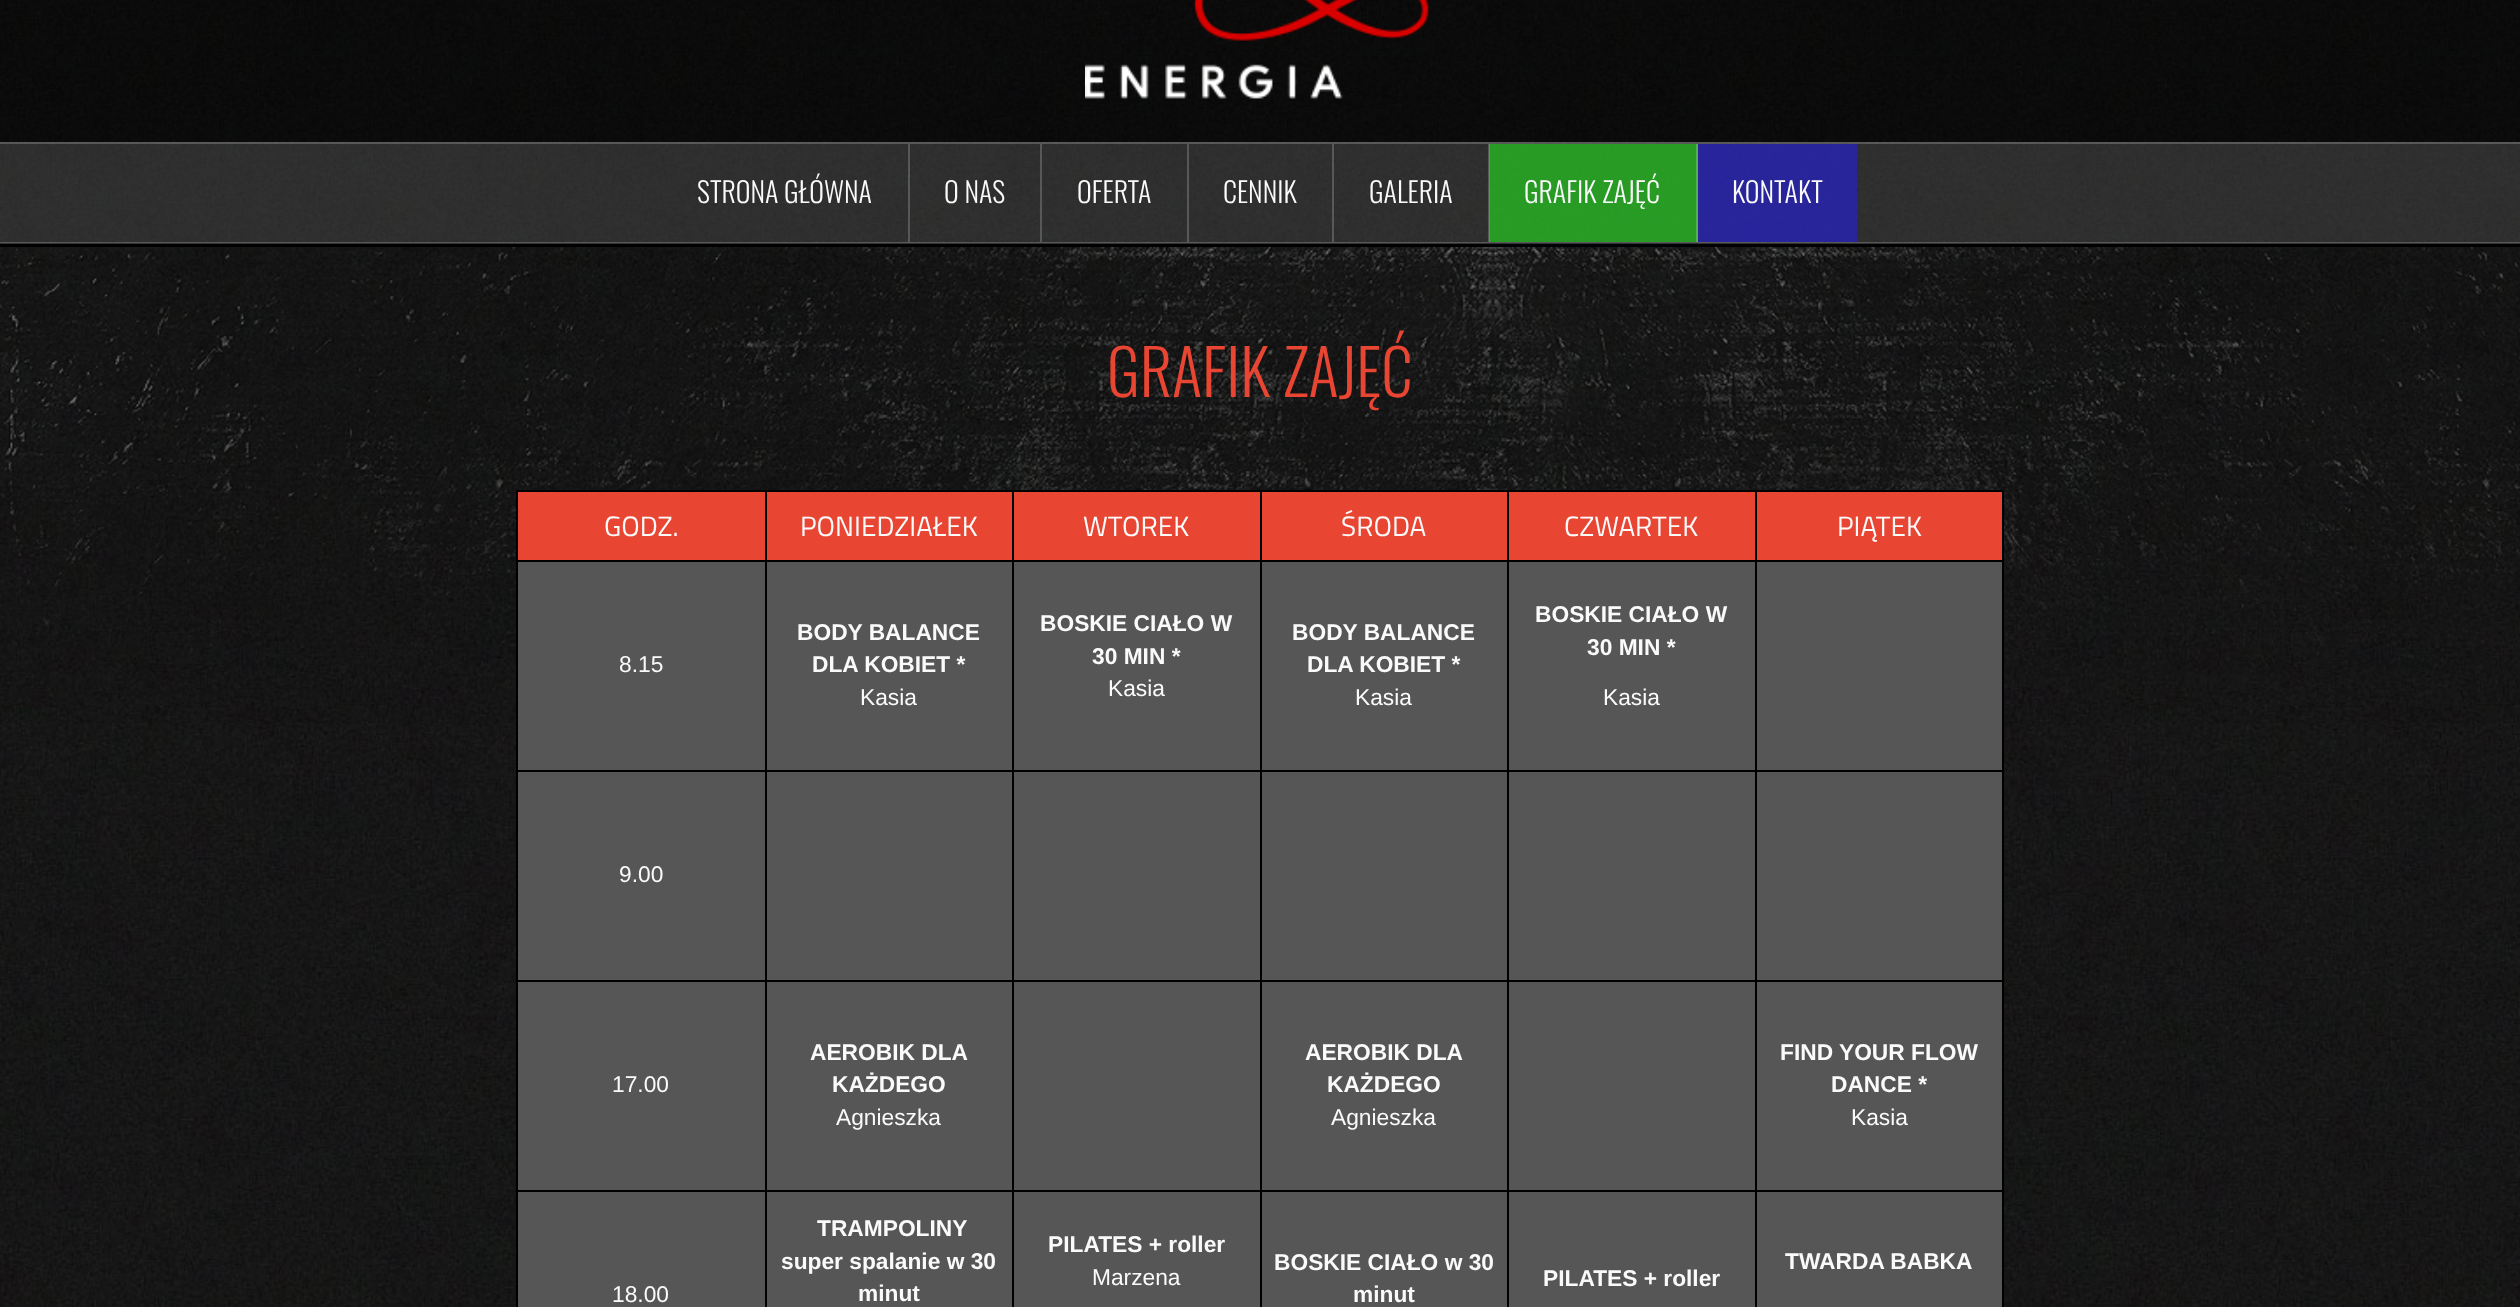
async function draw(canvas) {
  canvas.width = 2520
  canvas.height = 1307
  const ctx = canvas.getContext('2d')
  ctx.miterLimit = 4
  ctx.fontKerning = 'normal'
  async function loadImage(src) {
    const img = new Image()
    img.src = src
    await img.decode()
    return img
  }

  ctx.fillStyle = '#fff'
  ctx.fillRect(0, 0, 2520, 1307)
  ctx.drawImage(await loadImage('image0.png'), 0, 0, 2520, 1307)
  ctx.fillStyle = '#00000080'
  ctx.fillRect(0, 0, 2520, 243)
  ctx.drawImage(await loadImage('image1.png'), 1085, 0, 344, 99)
  ctx.fillStyle = '#ffffff26'
  ctx.fillRect(0, 142, 2520, 101)
  ctx.fillStyle = '#ffffff33'
  ctx.fillRect(0, 142, 2520, 2)
  ctx.fillStyle = '#000'
  ctx.fillRect(0, 243, 2520, 4)
  ctx.fillStyle = '#ffffff33'
  ctx.fillRect(0, 242, 2520, 2)
  ctx.fillRect(908, 144, 2, 98)
  ctx.font = '300 28px Oswald'
  ctx.fillStyle = '#fafafa'
  ctx.fillText('STRONA GŁÓWNA', 697, 203)
  ctx.fillStyle = '#ffffff33'
  ctx.fillRect(1040, 144, 2, 98)
  ctx.fillStyle = '#fafafa'
  ctx.fillText('O NAS', 944, 203)
  ctx.fillStyle = '#ffffff33'
  ctx.fillRect(1187, 144, 2, 98)
  ctx.fillStyle = '#fafafa'
  ctx.fillText('OFERTA', 1077, 203)
  ctx.fillStyle = '#ffffff33'
  ctx.fillRect(1332, 144, 2, 98)
  ctx.fillStyle = '#fafafa'
  ctx.fillText('CENNIK', 1223, 203)
  ctx.fillStyle = '#ffffff33'
  ctx.fillRect(1488, 144, 2, 98)
  ctx.fillStyle = '#fafafa'
  ctx.fillText('GALERIA', 1369, 203)
  ctx.fillStyle = '#24e41f99'
  ctx.fillRect(1489, 144, 207, 98)
  ctx.fillStyle = '#54b051'
  ctx.fillRect(1696, 144, 2, 98)
  ctx.fillStyle = '#fafafa'
  ctx.fillText('GRAFIK ZAJĘĆ', 1524, 203)
  ctx.fillStyle = '#241fe499'
  ctx.fillRect(1698, 144, 159, 98)
  ctx.fillStyle = '#fafafa'
  ctx.fillText('KONTAKT', 1732, 203)
  ctx.drawImage(await loadImage('image2.png'), 0, 247, 2520, 476)
  ctx.font = '300 63px Oswald'
  ctx.fillStyle = '#e84532'
  ctx.fillText('GRAFIK ZAJĘĆ', 1107, 397)
  ctx.fillStyle = '#565656'
  ctx.fillRect(518, 562, 1484, 745)
  ctx.fillStyle = '#e84532'
  ctx.fillRect(518, 492, 247, 68)
  ctx.fillStyle = '#000'
  ctx.fillRect(1755, 490, 249, 2)
  ctx.fillRect(1755, 560, 249, 2)
  ctx.fillRect(1755, 770, 249, 2)
  ctx.fillRect(1755, 980, 249, 2)
  ctx.fillRect(1755, 1190, 249, 2)
  ctx.fillRect(1755, 1190, 2, 117)
  ctx.fillRect(1507, 1190, 250, 2)
  ctx.fillRect(1755, 980, 2, 212)
  ctx.fillRect(1507, 980, 250, 2)
  ctx.fillRect(1755, 770, 2, 212)
  ctx.fillRect(1507, 770, 250, 2)
  ctx.fillRect(1755, 560, 2, 212)
  ctx.fillRect(1507, 560, 250, 2)
  ctx.fillRect(1755, 490, 2, 72)
  ctx.fillRect(1507, 490, 250, 2)
  ctx.fillRect(1507, 1190, 2, 117)
  ctx.fillRect(1260, 1190, 249, 2)
  ctx.fillRect(1507, 980, 2, 212)
  ctx.fillRect(1260, 980, 249, 2)
  ctx.fillRect(1507, 770, 2, 212)
  ctx.fillRect(1260, 770, 249, 2)
  ctx.fillRect(1507, 560, 2, 212)
  ctx.fillRect(1260, 560, 249, 2)
  ctx.fillRect(1507, 490, 2, 72)
  ctx.fillRect(1260, 490, 249, 2)
  ctx.fillRect(1260, 1190, 2, 117)
  ctx.fillRect(1012, 1190, 250, 2)
  ctx.fillRect(1260, 980, 2, 212)
  ctx.fillRect(1012, 980, 250, 2)
  ctx.fillRect(1260, 770, 2, 212)
  ctx.fillRect(1012, 770, 250, 2)
  ctx.fillRect(1260, 560, 2, 212)
  ctx.fillRect(1012, 560, 250, 2)
  ctx.fillRect(1260, 490, 2, 72)
  ctx.fillRect(1012, 490, 250, 2)
  ctx.fillRect(1012, 1190, 2, 117)
  ctx.fillRect(765, 1190, 248, 2)
  ctx.fillRect(1012, 980, 2, 212)
  ctx.fillRect(765, 980, 248, 2)
  ctx.fillRect(1012, 770, 2, 212)
  ctx.fillRect(765, 770, 248, 2)
  ctx.fillRect(1012, 560, 2, 212)
  ctx.fillRect(765, 560, 248, 2)
  ctx.fillRect(1012, 490, 2, 72)
  ctx.fillRect(765, 490, 248, 2)
  ctx.fillRect(765, 1190, 2, 117)
  ctx.fillRect(516, 1190, 251, 2)
  ctx.fillRect(765, 980, 2, 212)
  ctx.fillRect(516, 980, 251, 2)
  ctx.fillRect(765, 770, 2, 212)
  ctx.fillRect(516, 770, 251, 2)
  ctx.fillRect(765, 560, 2, 212)
  ctx.fillRect(516, 560, 251, 2)
  ctx.fillRect(765, 490, 2, 72)
  ctx.fillRect(516, 490, 251, 2)
  ctx.fillRect(516, 1190, 2, 117)
  ctx.fillRect(516, 980, 2, 212)
  ctx.fillRect(516, 770, 2, 212)
  ctx.fillRect(516, 560, 2, 212)
  ctx.fillRect(516, 490, 2, 72)
  ctx.font = '28px Titillium Web'
  ctx.fillStyle = '#fafafa'
  ctx.fillText('GODZ.', 604, 536)
  ctx.fillStyle = '#e84532'
  ctx.fillRect(767, 492, 245, 68)
  ctx.fillStyle = '#fafafa'
  ctx.fillText('PONIEDZIAŁEK', 800, 536)
  ctx.fillStyle = '#e84532'
  ctx.fillRect(1014, 492, 246, 68)
  ctx.fillStyle = '#fafafa'
  ctx.fillText('WTOREK', 1083, 536)
  ctx.fillStyle = '#e84532'
  ctx.fillRect(1262, 492, 245, 68)
  ctx.fillStyle = '#fafafa'
  ctx.fillText('ŚRODA', 1341, 536)
  ctx.fillStyle = '#e84532'
  ctx.fillRect(1509, 492, 246, 68)
  ctx.fillStyle = '#fafafa'
  ctx.fillText('CZWARTEK', 1564, 536)
  ctx.fillStyle = '#e84532'
  ctx.fillRect(1757, 492, 245, 68)
  ctx.fillStyle = '#000'
  ctx.fillRect(2002, 1190, 2, 117)
  ctx.fillRect(2002, 980, 2, 212)
  ctx.fillRect(2002, 770, 2, 212)
  ctx.fillRect(2002, 560, 2, 212)
  ctx.fillRect(2002, 490, 2, 72)
  ctx.fillStyle = '#fafafa'
  ctx.fillText('PIĄTEK', 1837, 536)
  ctx.font = '22.75px Liberation Sans'
  ctx.fillText('8.15', 619, 672)
  ctx.font = 'bold 22.75px Liberation Sans'
  ctx.fillText('BODY BALANCE', 797, 640)
  ctx.fillText('DLA KOBIET *', 812, 672)
  ctx.font = '22.75px Liberation Sans'
  ctx.fillText('Kasia', 860, 705)
  ctx.font = 'bold 22.75px Liberation Sans'
  ctx.fillText('BOSKIE CIAŁO W', 1040, 631)
  ctx.fillText('30 MIN *', 1092, 664)
  ctx.font = '22.75px Liberation Sans'
  ctx.fillText('Kasia', 1108, 696)
  ctx.font = 'bold 22.75px Liberation Sans'
  ctx.fillText('BODY BALANCE', 1292, 640)
  ctx.fillText('DLA KOBIET *', 1307, 672)
  ctx.font = '22.75px Liberation Sans'
  ctx.fillText('Kasia', 1355, 705)
  ctx.font = 'bold 22.75px Liberation Sans'
  ctx.fillText('BOSKIE CIAŁO W', 1535, 622)
  ctx.fillText('30 MIN *', 1587, 655)
  ctx.font = '22.75px Liberation Sans'
  ctx.fillText('Kasia', 1603, 705)
  ctx.fillText('9.00', 619, 882)
  ctx.fillText('17.00', 612, 1092)
  ctx.font = 'bold 22.75px Liberation Sans'
  ctx.fillText('AEROBIK DLA', 810, 1060)
  ctx.fillText('KAŻDEGO', 832, 1092)
  ctx.font = '22.75px Liberation Sans'
  ctx.fillText('Agnieszka', 836, 1125)
  ctx.font = 'bold 22.75px Liberation Sans'
  ctx.fillText('AEROBIK DLA', 1305, 1060)
  ctx.fillText('KAŻDEGO', 1327, 1092)
  ctx.font = '22.75px Liberation Sans'
  ctx.fillText('Agnieszka', 1331, 1125)
  ctx.font = 'bold 22.75px Liberation Sans'
  ctx.fillText('FIND YOUR FLOW', 1780, 1060)
  ctx.fillText('DANCE *', 1831, 1092)
  ctx.font = '22.75px Liberation Sans'
  ctx.fillText('Kasia', 1851, 1125)
  ctx.font = 'bold 22.75px Liberation Sans'
  ctx.fillText('TRAMPOLINY', 817, 1236)
  ctx.fillText('super spalanie w 30', 781, 1269)
  ctx.fillText('minut', 858, 1301)
  ctx.fillText('PILATES + roller', 1048, 1252)
  ctx.font = '22.75px Liberation Sans'
  ctx.fillText('Marzena', 1092, 1285)
  ctx.font = 'bold 22.75px Liberation Sans'
  ctx.fillText('BOSKIE CIAŁO w 30', 1274, 1270)
  ctx.fillText('minut', 1353, 1302)
  ctx.fillText('PILATES + roller', 1543, 1286)
  ctx.fillText('TWARDA BABKA', 1785, 1269)
  ctx.font = '22.75px Liberation Sans'
  ctx.fillText('18.00', 612, 1302)
}

draw(document.querySelector('canvas'))
